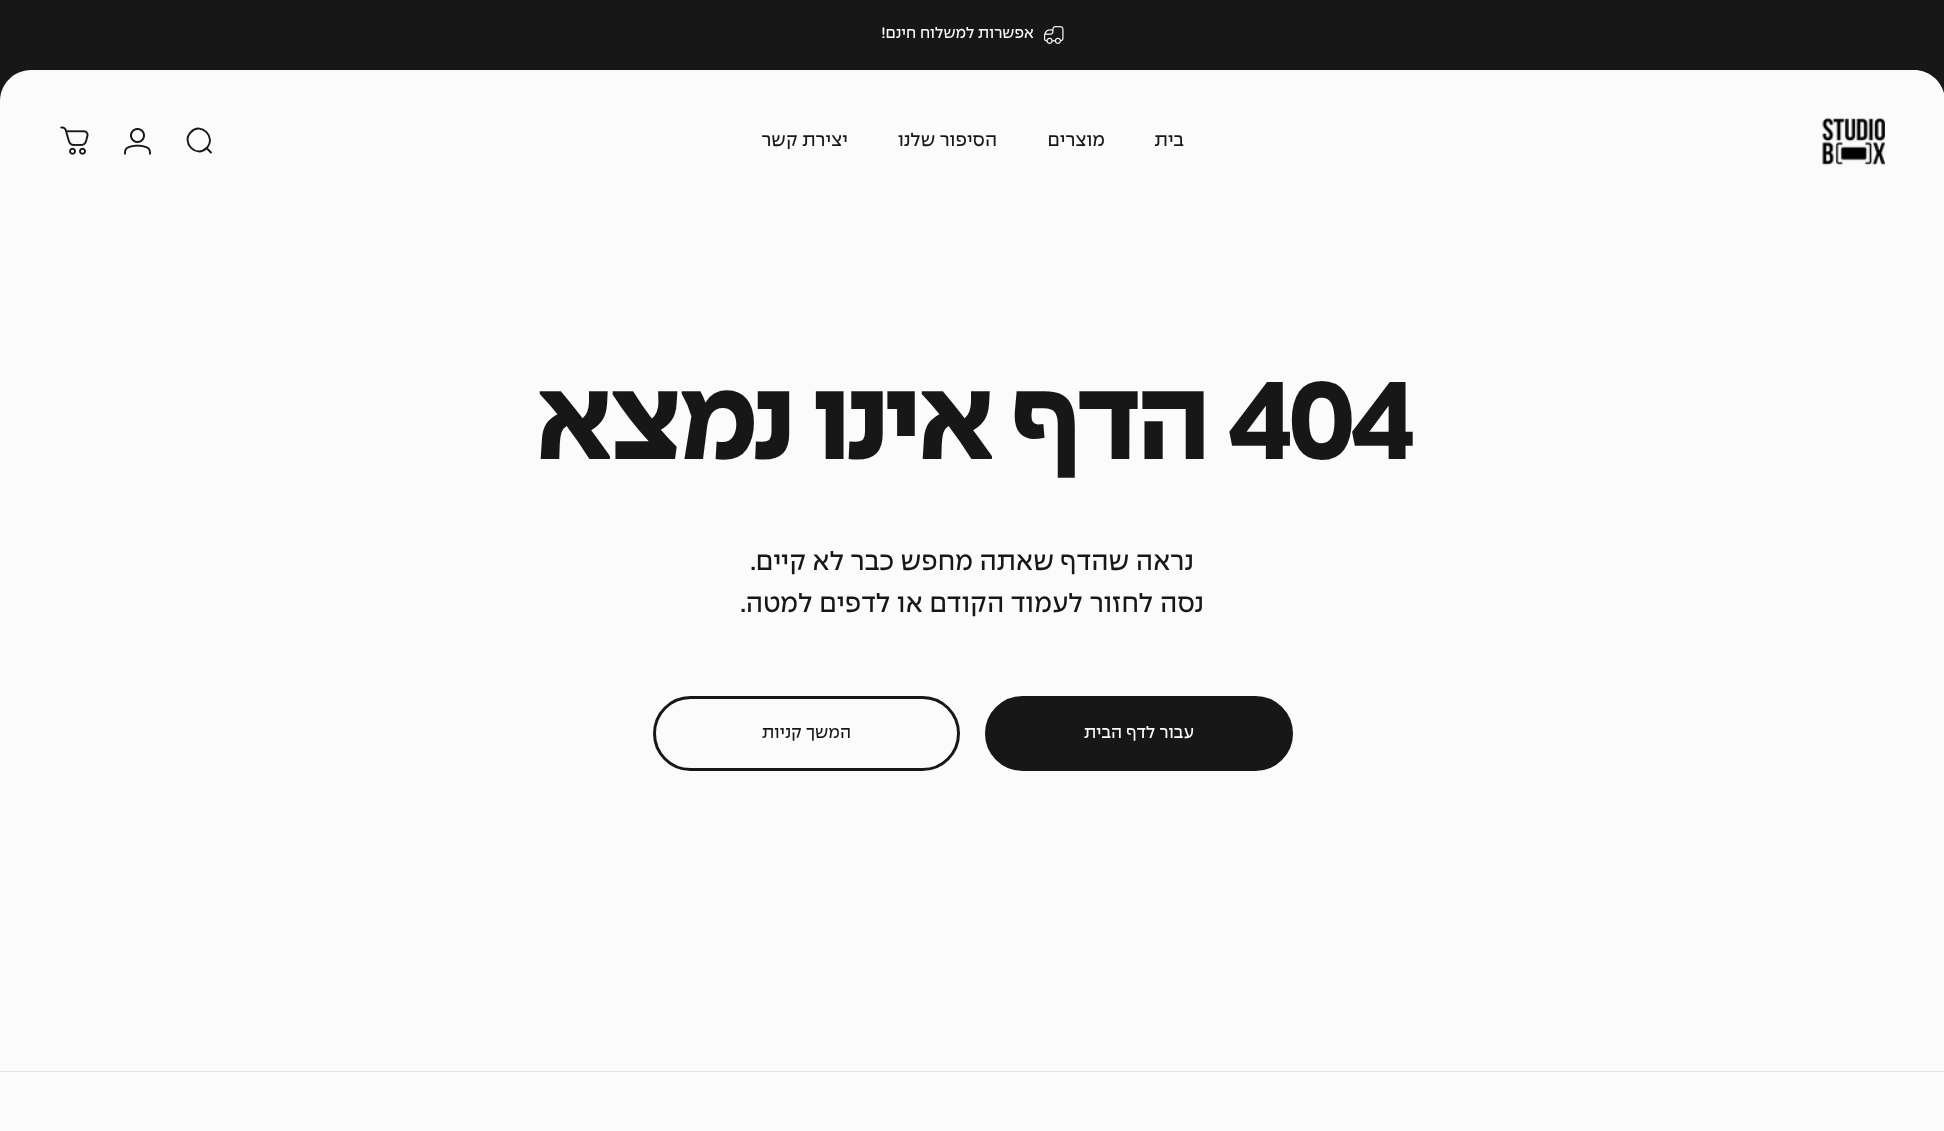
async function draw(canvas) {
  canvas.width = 1944
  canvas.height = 1131
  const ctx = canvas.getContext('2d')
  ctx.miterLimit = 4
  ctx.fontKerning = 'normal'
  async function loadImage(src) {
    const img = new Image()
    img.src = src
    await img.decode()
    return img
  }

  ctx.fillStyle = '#fbfbfb'
  ctx.fillRect(0, 0, 1944, 1131)
  ctx.fillStyle = '#171717'
  ctx.fillRect(0, 0, 1944, 31)
  ctx.beginPath()
  ctx.moveTo(31, 0)
  ctx.lineTo(1914, 0)
  ctx.bezierCurveTo(1931, 0, 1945, 14, 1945, 31)
  ctx.lineTo(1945, 101)
  ctx.lineTo(0, 101)
  ctx.lineTo(0, 31)
  ctx.bezierCurveTo(0, 14, 14, 0, 31, 0)
  ctx.closePath()
  ctx.fill()
  ctx.drawImage(await loadImage('image0.png'), 1044, 26, 20, 18)
  ctx.direction = 'rtl'
  ctx.font = '17.5px "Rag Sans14"'
  ctx.fillStyle = '#fbfbfb'
  ctx.fillText('אפשרות למשלוח חינם!', 1034, 38)
  ctx.beginPath()
  ctx.moveTo(31, 70)
  ctx.lineTo(1914, 70)
  ctx.bezierCurveTo(1931, 70, 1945, 84, 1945, 101)
  ctx.lineTo(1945, 213)
  ctx.lineTo(0, 213)
  ctx.lineTo(0, 101)
  ctx.bezierCurveTo(0, 84, 14, 70, 31, 70)
  ctx.closePath()
  ctx.fill()
  ctx.drawImage(await loadImage('image1.png'), 1822, 117, 63, 49)
  ctx.font = '21px "Rag Sans14"'
  ctx.fillStyle = '#171717'
  ctx.fillText('בית', 1184, 146)
  ctx.fillText('מוצרים', 1105, 146)
  ctx.fillText('הסיפור שלנו', 997, 146)
  ctx.fillText('יצירת קשר', 848, 146)
  ctx.beginPath()
  ctx.moveTo(211, 152.5)
  ctx.lineTo(206.5, 148)
  ctx.moveTo(206.5, 148)
  ctx.bezierCurveTo(217, 137.5, 201, 121.5, 191, 132)
  ctx.bezierCurveTo(180.5, 142.5, 196.5, 158.5, 206.5, 148)
  ctx.closePath()
  ctx.strokeStyle = '#171717'
  ctx.lineWidth = 1.9
  ctx.lineCap = 'round'
  ctx.stroke()
  ctx.drawImage(await loadImage('image2.png'), 124, 128, 27, 27)
  ctx.drawImage(await loadImage('image3.png'), 60, 126, 29, 29)
  ctx.letterSpacing = '-5px'
  ctx.direction = 'ltr'
  ctx.font = 'bold 131px "Rag Sans14"'
  ctx.fillText('404', 1228, 459)
  ctx.direction = 'rtl'
  ctx.fillText('הדף', 1206, 459)
  ctx.fillText('אינו', 991, 459)
  ctx.fillText('נמצא', 791, 459)
  ctx.letterSpacing = '0px'
  ctx.font = '30px "Rag Sans14"'
  ctx.fillText('נראה שהדף שאתה מחפש כבר לא קיים.', 1194, 570)
  ctx.wordSpacing = '0.25px'
  ctx.fillText('נסה לחזור לעמוד הקודם או לדפים למטה.', 1204, 612)
  ctx.beginPath()
  ctx.roundRect(986.5, 697.5, 305, 72, 36)
  ctx.fill()
  ctx.lineWidth = 3
  ctx.stroke()
  ctx.wordSpacing = '0px'
  ctx.font = '19.25px "Rag Sans14"'
  ctx.fillStyle = '#fbfbfb'
  ctx.fillText('עבור לדף הבית', 1194, 738)
  ctx.beginPath()
  ctx.roundRect(654.5, 697.5, 304, 72, 36)
  ctx.stroke()
  ctx.fillStyle = '#171717'
  ctx.fillText('המשך קניות', 851, 738)
  ctx.fillStyle = '#e4e4e4'
  ctx.fillRect(0, 1071, 1944, 1)
}

draw(document.querySelector('canvas'))
